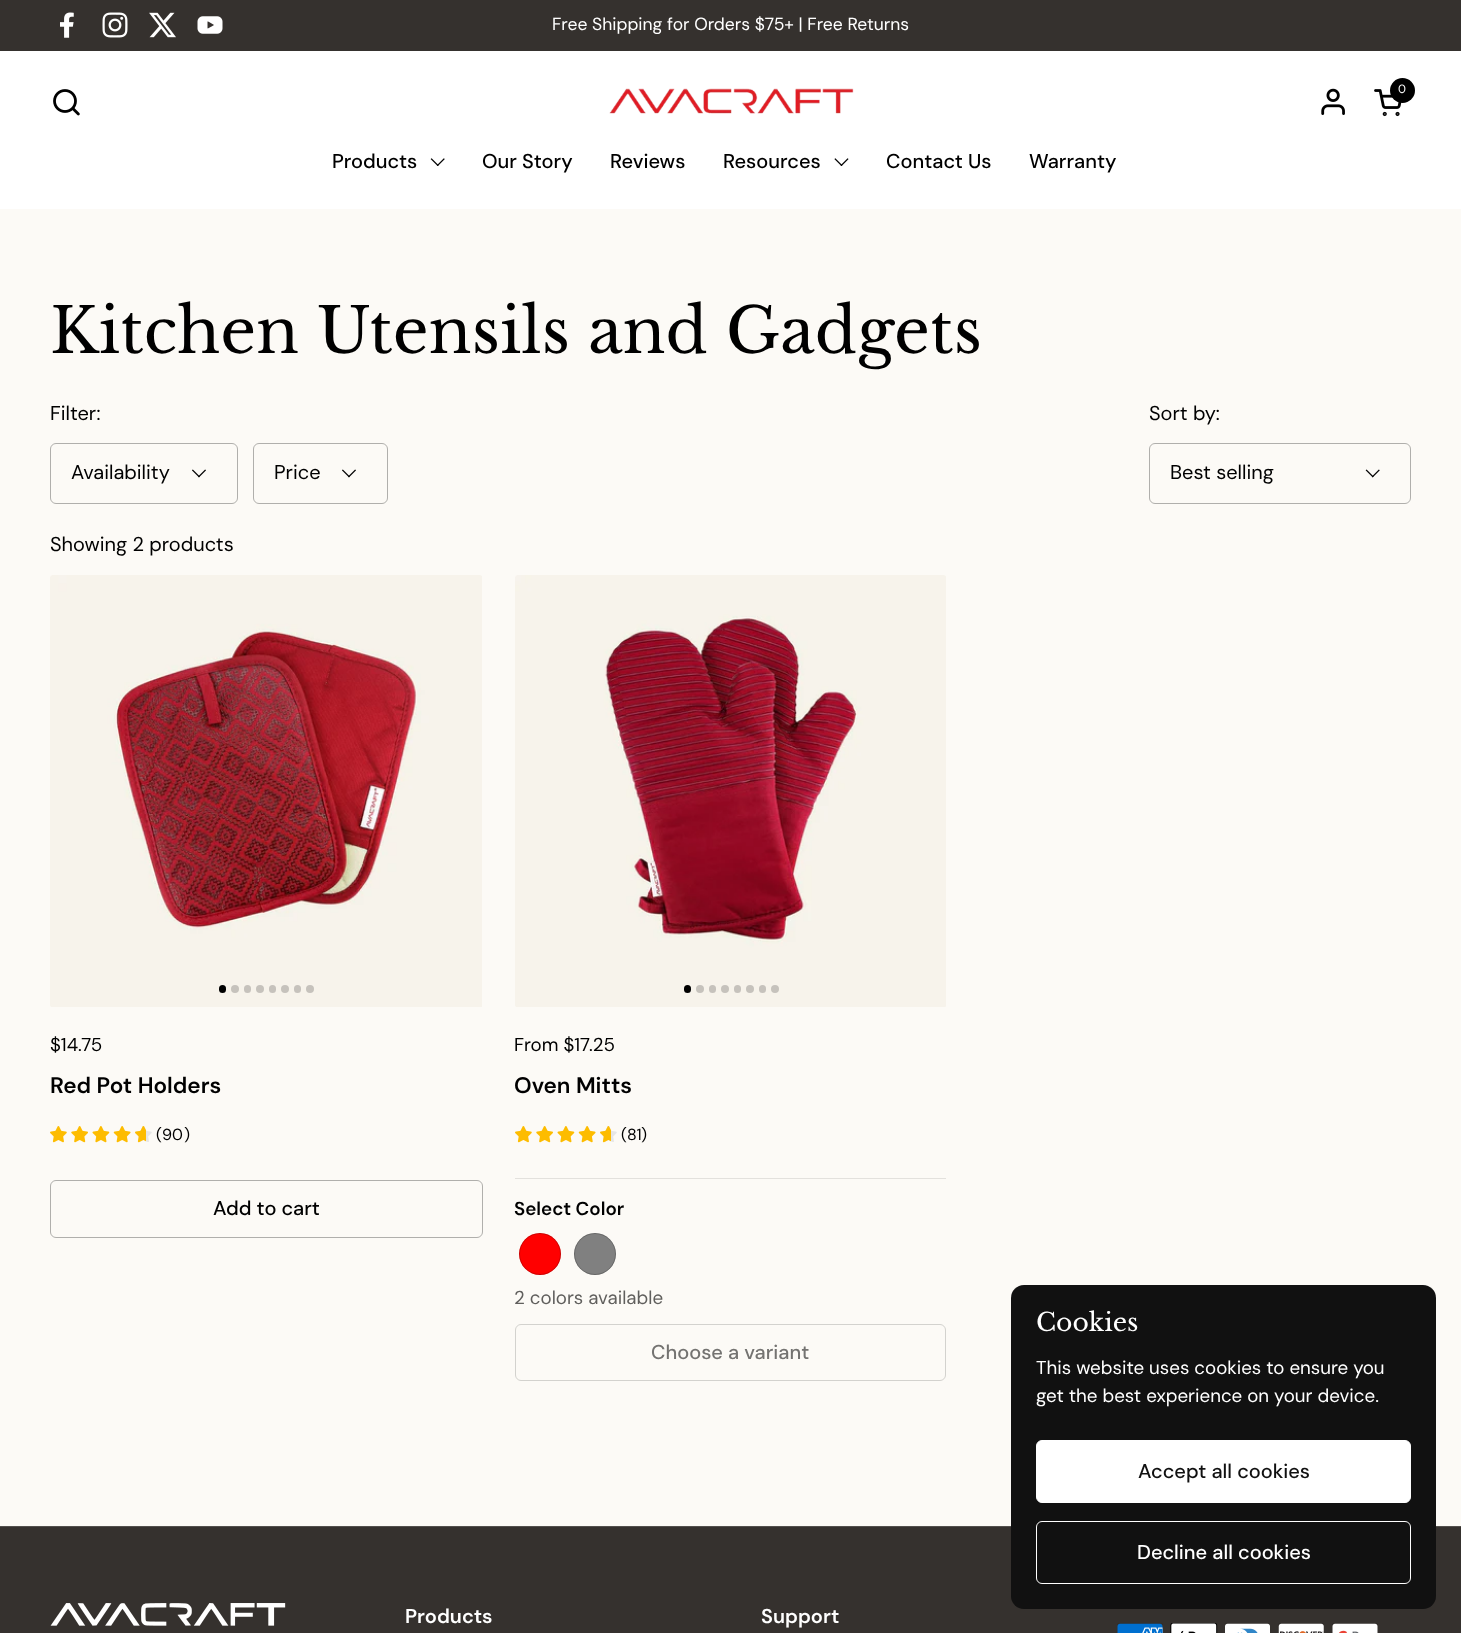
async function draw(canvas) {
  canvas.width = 1461
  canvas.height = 1633
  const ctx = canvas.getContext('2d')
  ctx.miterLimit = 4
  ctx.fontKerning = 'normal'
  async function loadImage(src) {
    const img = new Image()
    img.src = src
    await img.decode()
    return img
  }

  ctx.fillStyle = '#fcfaf6'
  ctx.fillRect(0, 0, 1461, 1633)
  ctx.fillStyle = '#35312e'
  ctx.fillRect(0, 0, 1461, 51)
  ctx.drawImage(await loadImage('image0.png'), 60, 12, 14, 26)
  ctx.drawImage(await loadImage('image1.png'), 102, 12, 26, 26)
  ctx.drawImage(await loadImage('image2.png'), 149, 12, 27, 26)
  ctx.drawImage(await loadImage('image3.png'), 197, 16, 26, 18)
  ctx.font = '17.5px "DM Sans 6"'
  ctx.fillStyle = '#fff'
  ctx.fillText('Free Shipping for Orders $75+ | Free Returns', 552, 30)
  ctx.fillRect(0, 51, 1461, 158)
  ctx.drawImage(await loadImage('image4.png'), 53, 89, 27, 27)
  ctx.drawImage(await loadImage('image5.png'), 609, 88, 245, 26)
  ctx.drawImage(await loadImage('image6.png'), 1321, 88, 24, 27)
  ctx.fillStyle = '#000'
  ctx.beginPath()
  ctx.arc(1402.5, 90.5, 12.5, 0, 2 * Math.PI)
  ctx.fill()
  ctx.font = '12px "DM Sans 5"'
  ctx.fillStyle = '#fff'
  ctx.fillText('0', 1398, 93)
  ctx.drawImage(await loadImage('image7.png'), 1374, 89, 28, 28)
  ctx.font = '500 20px DM Sans'
  ctx.fillStyle = '#000'
  ctx.fillText('Products', 332, 168)
  ctx.drawImage(await loadImage('image8.png'), 430, 158, 15, 8)
  ctx.fillText('Our Story', 482, 168)
  ctx.fillText('Reviews', 610, 168)
  ctx.fillText('Resources', 723, 168)
  ctx.drawImage(await loadImage('image9.png'), 834, 158, 15, 8)
  ctx.fillText('Contact Us', 886, 168)
  ctx.fillText('Warranty', 1029, 168)
  ctx.font = '62.5px Libre Baskerville'
  ctx.fillText('Kitchen Utensils and Gadgets', 50, 353)
  ctx.font = '20px DM Sans'
  ctx.fillText('Filter:', 50, 420)
  ctx.drawImage(await loadImage('image10.png'), 192, 469, 14, 9)
  ctx.beginPath()
  ctx.roundRect(50.5, 443.5, 187, 60, 5.5)
  ctx.strokeStyle = '#b0afac'
  ctx.stroke()
  ctx.fillText('Availability', 71, 479)
  ctx.drawImage(await loadImage('image10.png'), 342, 469, 14, 9)
  ctx.beginPath()
  ctx.roundRect(253.5, 443.5, 134, 60, 5.5)
  ctx.stroke()
  ctx.fillText('Price', 274, 479)
  ctx.fillText('Sort by:', 1149, 420)
  ctx.drawImage(await loadImage('image11.png'), 1365, 469, 15, 9)
  ctx.beginPath()
  ctx.roundRect(1149.5, 443.5, 261, 60, 5.5)
  ctx.stroke()
  ctx.fillText('Best selling', 1170, 479)
  ctx.fillText('Showing 2 products', 50, 551)
  ctx.drawImage(await loadImage('image12.png'), 50, 575, 432, 432)
  ctx.beginPath()
  ctx.roundRect(219, 985, 7, 8, 3.5)
  ctx.fill()
  ctx.fillStyle = '#c6c2bc'
  ctx.beginPath()
  ctx.arc(235, 989, 4, 0, 2 * Math.PI)
  ctx.fill()
  ctx.beginPath()
  ctx.roundRect(244, 985, 7, 8, 3.5)
  ctx.fill()
  ctx.beginPath()
  ctx.arc(260, 989, 4, 0, 2 * Math.PI)
  ctx.fill()
  ctx.beginPath()
  ctx.roundRect(269, 985, 7, 8, 3.5)
  ctx.fill()
  ctx.beginPath()
  ctx.arc(285, 989, 4, 0, 2 * Math.PI)
  ctx.fill()
  ctx.beginPath()
  ctx.roundRect(294, 985, 7, 8, 3.5)
  ctx.fill()
  ctx.beginPath()
  ctx.arc(310, 989, 4, 0, 2 * Math.PI)
  ctx.fill()
  ctx.font = '18.75px "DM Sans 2"'
  ctx.fillStyle = '#000'
  ctx.fillText('$14.75', 50, 1051)
  ctx.font = '600 22.5px DM Sans'
  ctx.fillText('Red Pot Holders', 50, 1093)
  ctx.drawImage(await loadImage('image13.png'), 50, 1126, 17, 17)
  ctx.drawImage(await loadImage('image14.png'), 71, 1126, 17, 17)
  ctx.drawImage(await loadImage('image15.png'), 92, 1126, 18, 17)
  ctx.drawImage(await loadImage('image16.png'), 113, 1126, 18, 17)
  ctx.drawImage(await loadImage('image17.png'), 135, 1126, 17, 16)
  ctx.drawImage(await loadImage('image18.png'), 135, 1126, 11, 17)
  ctx.font = '16px "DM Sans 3"'
  ctx.fillText('(', 156, 1140)
  ctx.font = '16px "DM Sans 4"'
  ctx.fillText('90', 162, 1140)
  ctx.font = '16px "DM Sans 3"'
  ctx.fillText(')', 184, 1140)
  ctx.beginPath()
  ctx.roundRect(50.5, 1180.5, 432, 57, 5.5)
  ctx.stroke()
  ctx.font = '500 20px DM Sans'
  ctx.fillText('Add to cart', 213, 1215)
  ctx.drawImage(await loadImage('image19.png'), 515, 575, 431, 432)
  ctx.beginPath()
  ctx.roundRect(684, 985, 7, 8, 3.5)
  ctx.fill()
  ctx.fillStyle = '#c6c2bc'
  ctx.beginPath()
  ctx.arc(700, 989, 4, 0, 2 * Math.PI)
  ctx.fill()
  ctx.beginPath()
  ctx.roundRect(709, 985, 7, 8, 3.5)
  ctx.fill()
  ctx.beginPath()
  ctx.arc(725, 989, 4, 0, 2 * Math.PI)
  ctx.fill()
  ctx.beginPath()
  ctx.roundRect(734, 985, 7, 8, 3.5)
  ctx.fill()
  ctx.beginPath()
  ctx.arc(750, 989, 4, 0, 2 * Math.PI)
  ctx.fill()
  ctx.beginPath()
  ctx.roundRect(759, 985, 7, 8, 3.5)
  ctx.fill()
  ctx.beginPath()
  ctx.arc(775, 989, 4, 0, 2 * Math.PI)
  ctx.fill()
  ctx.font = '18.75px "DM Sans 2"'
  ctx.fillStyle = '#000'
  ctx.fillText('From $17.25', 514, 1051)
  ctx.font = '600 22.5px DM Sans'
  ctx.fillText('Oven Mitts', 514, 1093)
  ctx.drawImage(await loadImage('image13.png'), 515, 1126, 17, 17)
  ctx.drawImage(await loadImage('image14.png'), 536, 1126, 17, 17)
  ctx.drawImage(await loadImage('image15.png'), 557, 1126, 18, 17)
  ctx.drawImage(await loadImage('image16.png'), 578, 1126, 18, 17)
  ctx.drawImage(await loadImage('image17.png'), 600, 1126, 17, 16)
  ctx.drawImage(await loadImage('image18.png'), 600, 1126, 11, 17)
  ctx.font = '16px "DM Sans 3"'
  ctx.fillText('(', 621, 1140)
  ctx.font = '16px "DM Sans 4"'
  ctx.fillText('81', 627, 1140)
  ctx.font = '16px "DM Sans 3"'
  ctx.fillText(')', 641, 1140)
  ctx.fillStyle = '#e3e1dd'
  ctx.fillRect(515, 1178, 431, 1)
  ctx.font = '600 18.75px "DM Sans 2"'
  ctx.fillStyle = '#000'
  ctx.fillText('Select Color', 514, 1215)
  ctx.fillStyle = '#f00'
  ctx.beginPath()
  ctx.arc(540, 1254, 21, 0, 2 * Math.PI)
  ctx.fill()
  ctx.beginPath()
  ctx.arc(540, 1254, 20.5, 0, 2 * Math.PI)
  ctx.strokeStyle = '#00000033'
  ctx.stroke()
  ctx.fillStyle = '#808080'
  ctx.beginPath()
  ctx.arc(595, 1254, 21, 0, 2 * Math.PI)
  ctx.fill()
  ctx.beginPath()
  ctx.arc(595, 1254, 20.5, 0, 2 * Math.PI)
  ctx.stroke()
  ctx.font = '18.75px "DM Sans 2"'
  ctx.fillStyle = '#605f5d'
  ctx.fillText('2 colors available', 514, 1304)
  ctx.beginPath()
  ctx.roundRect(515.5, 1324.5, 430, 56, 5.5)
  ctx.strokeStyle = '#d3d2ce'
  ctx.stroke()
  ctx.font = '500 20px DM Sans'
  ctx.fillStyle = '#747371'
  ctx.fillText('Choose a variant', 651, 1359)
  ctx.fillStyle = '#35312e'
  ctx.fillRect(0, 1527, 1461, 106)
  ctx.fillStyle = '#53504d'
  ctx.fillRect(0, 1526, 1461, 1)
  ctx.fillStyle = '#111'
  ctx.beginPath()
  ctx.roundRect(1011, 1285, 425, 324, 13)
  ctx.fill()
  ctx.font = '25px Libre Baskerville'
  ctx.fillStyle = '#fff'
  ctx.fillText('Cookies', 1036, 1331)
  ctx.font = '18.75px "DM Sans 2"'
  ctx.fillText('This website uses cookies to ensure you', 1036, 1374)
  ctx.fillText('get the best experience on your device.', 1036, 1402)
  ctx.beginPath()
  ctx.roundRect(1036.5, 1440.5, 374, 62, 5.5)
  ctx.fill()
  ctx.strokeStyle = '#fff'
  ctx.stroke()
  ctx.font = '500 20px DM Sans'
  ctx.fillStyle = '#111'
  ctx.fillText('Accept all cookies', 1138, 1478)
  ctx.beginPath()
  ctx.roundRect(1036.5, 1521.5, 374, 62, 5.5)
  ctx.stroke()
  ctx.fillStyle = '#fff'
  ctx.fillText('Decline all cookies', 1137, 1559)
  ctx.drawImage(await loadImage('image20.png'), 50, 1603, 236, 23)
  ctx.font = '600 20px "DM Sans 3"'
  ctx.fillText('Products', 405, 1623)
  ctx.fillText('Support', 761, 1623)
  ctx.drawImage(await loadImage('image21.png'), 1117, 1623, 46, 10)
  ctx.drawImage(await loadImage('image22.png'), 1170, 1623, 48, 10)
  ctx.drawImage(await loadImage('image23.png'), 1225, 1623, 45, 10)
  ctx.drawImage(await loadImage('image24.png'), 1278, 1623, 46, 10)
  ctx.drawImage(await loadImage('image25.png'), 1332, 1623, 46, 10)
}

draw(document.querySelector('canvas'))
